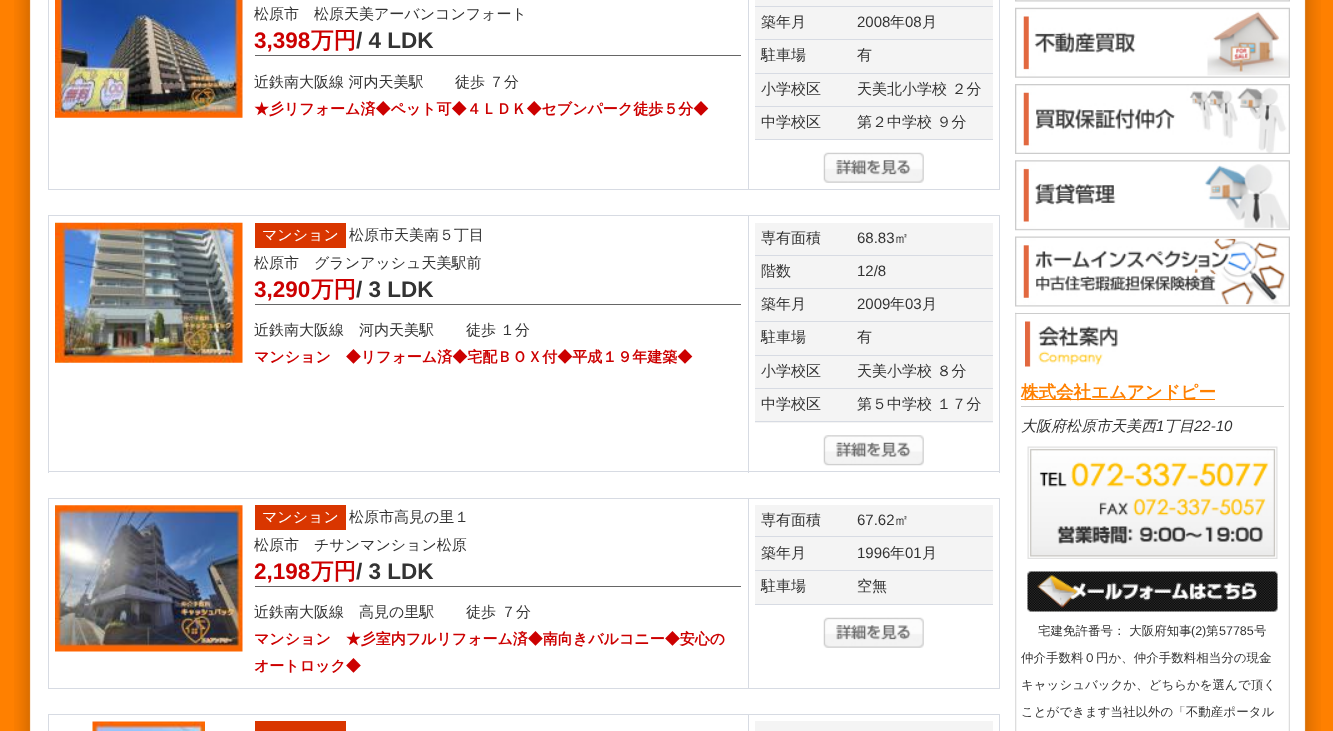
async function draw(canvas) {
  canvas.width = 1333
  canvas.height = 731
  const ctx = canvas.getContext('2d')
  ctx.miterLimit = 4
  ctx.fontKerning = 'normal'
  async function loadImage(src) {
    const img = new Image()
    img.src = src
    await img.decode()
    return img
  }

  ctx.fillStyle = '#ff8000'
  ctx.fillRect(0, 0, 1333, 731)
  ctx.drawImage(await loadImage('image0.png'), 14, 0, 1307, 731)
  ctx.fillStyle = '#d7dbe3'
  ctx.fillRect(48, 0, 1, 190)
  ctx.fillRect(49, 189, 200, 1)
  ctx.drawImage(await loadImage('image1.png'), 55, 0, 188, 118)
  ctx.fillRect(748, 0, 1, 190)
  ctx.fillRect(249, 189, 500, 1)
  ctx.font = '500 15px WenQuanYi Zen Hei'
  ctx.fillStyle = '#333'
  ctx.fillText('松原市　松原天美アーバンコンフォート', 254, 19)
  ctx.fillStyle = '#666'
  ctx.fillRect(255, 55, 486, 1)
  ctx.font = 'bold 22.5px Liberation Sans'
  ctx.fillStyle = '#c00'
  ctx.fillText('3,398', 254, 48)
  ctx.font = 'bold 22.5px WenQuanYi Zen Hei'
  ctx.fillText('万円', 311, 48)
  ctx.font = 'bold 22.5px Liberation Sans'
  ctx.fillStyle = '#333'
  ctx.fillText('/ 4 LDK', 356, 48)
  ctx.font = '500 15px WenQuanYi Zen Hei'
  ctx.fillText('近鉄南大阪線 河内天美駅', 254, 87)
  ctx.fillText('徒歩', 455, 87)
  ctx.fillText('７分', 489, 87)
  ctx.font = 'bold 15px WenQuanYi Zen Hei'
  ctx.fillStyle = '#c00'
  ctx.fillText('★彡リフォーム済◆ペット可◆４ＬＤＫ◆セブンパーク徒歩５分◆', 254, 114)
  ctx.fillStyle = '#d7dbe3'
  ctx.fillRect(999, 0, 1, 190)
  ctx.fillRect(749, 189, 251, 1)
  ctx.fillStyle = '#f4f4f4'
  ctx.fillRect(755, 0, 238, 139)
  ctx.fillStyle = '#d7dbe3'
  ctx.fillRect(755, 6, 238, 1)
  ctx.fillRect(755, 39, 238, 1)
  ctx.font = '500 15px WenQuanYi Zen Hei'
  ctx.fillStyle = '#333'
  ctx.fillText('築年月', 761, 27)
  ctx.font = '15px Liberation Sans'
  ctx.fillText('2008', 857, 27)
  ctx.font = '500 15px WenQuanYi Zen Hei'
  ctx.fillText('年', 890, 27)
  ctx.font = '15px Liberation Sans'
  ctx.fillText('08', 905, 27)
  ctx.font = '500 15px WenQuanYi Zen Hei'
  ctx.fillText('月', 922, 27)
  ctx.fillStyle = '#d7dbe3'
  ctx.fillRect(755, 73, 238, 1)
  ctx.fillStyle = '#333'
  ctx.fillText('駐車場', 761, 60)
  ctx.fillText('有', 857, 60)
  ctx.fillStyle = '#d7dbe3'
  ctx.fillRect(755, 106, 238, 1)
  ctx.fillStyle = '#333'
  ctx.fillText('小学校区', 761, 94)
  ctx.fillText('天美北小学校 ２分', 857, 94)
  ctx.fillStyle = '#d7dbe3'
  ctx.fillRect(755, 139, 238, 1)
  ctx.fillStyle = '#333'
  ctx.fillText('中学校区', 761, 127)
  ctx.fillText('第２中学校 ９分', 857, 127)
  ctx.drawImage(await loadImage('image2.png'), 823, 152, 101, 31)
  ctx.fillStyle = '#d7dbe3'
  ctx.fillRect(48, 215, 952, 1)
  ctx.fillRect(48, 215, 1, 258)
  ctx.fillRect(49, 471, 200, 1)
  ctx.drawImage(await loadImage('image3.png'), 55, 222, 188, 141)
  ctx.fillRect(748, 216, 1, 257)
  ctx.fillRect(249, 471, 500, 1)
  ctx.fillStyle = '#d93600'
  ctx.fillRect(255, 223, 91, 25)
  ctx.fillStyle = '#fff'
  ctx.fillText('マンション', 262, 240)
  ctx.fillStyle = '#333'
  ctx.fillText('松原市天美南５丁目', 349, 240)
  ctx.fillText('松原市　グランアッシュ天美駅前', 254, 268)
  ctx.fillStyle = '#666'
  ctx.fillRect(255, 304, 486, 1)
  ctx.font = 'bold 22.5px Liberation Sans'
  ctx.fillStyle = '#c00'
  ctx.fillText('3,290', 254, 297)
  ctx.font = 'bold 22.5px WenQuanYi Zen Hei'
  ctx.fillText('万円', 311, 297)
  ctx.font = 'bold 22.5px Liberation Sans'
  ctx.fillStyle = '#333'
  ctx.fillText('/ 3 LDK', 356, 297)
  ctx.font = '500 15px WenQuanYi Zen Hei'
  ctx.fillText('近鉄南大阪線　河内天美駅', 254, 335)
  ctx.fillText('徒歩', 466, 335)
  ctx.fillText('１分', 500, 335)
  ctx.font = 'bold 15px WenQuanYi Zen Hei'
  ctx.fillStyle = '#c00'
  ctx.fillText('マンション　◆リフォーム済◆宅配ＢＯＸ付◆平成１９年建築◆', 254, 362)
  ctx.fillStyle = '#d7dbe3'
  ctx.fillRect(999, 216, 1, 257)
  ctx.fillRect(749, 471, 251, 1)
  ctx.fillStyle = '#f4f4f4'
  ctx.fillRect(755, 223, 238, 200)
  ctx.fillStyle = '#d7dbe3'
  ctx.fillRect(755, 255, 238, 1)
  ctx.font = '500 15px WenQuanYi Zen Hei'
  ctx.fillStyle = '#333'
  ctx.fillText('専有面積', 761, 243)
  ctx.font = '15px Liberation Sans'
  ctx.fillText('68.83', 857, 243)
  ctx.font = '500 15px WenQuanYi Zen Hei'
  ctx.fillText('㎡', 894, 243)
  ctx.fillStyle = '#d7dbe3'
  ctx.fillRect(755, 288, 238, 1)
  ctx.fillStyle = '#333'
  ctx.fillText('階数', 761, 276)
  ctx.font = '15px Liberation Sans'
  ctx.fillText('12/8', 857, 276)
  ctx.fillStyle = '#d7dbe3'
  ctx.fillRect(755, 321, 238, 1)
  ctx.font = '500 15px WenQuanYi Zen Hei'
  ctx.fillStyle = '#333'
  ctx.fillText('築年月', 761, 309)
  ctx.font = '15px Liberation Sans'
  ctx.fillText('2009', 857, 309)
  ctx.font = '500 15px WenQuanYi Zen Hei'
  ctx.fillText('年', 890, 309)
  ctx.font = '15px Liberation Sans'
  ctx.fillText('03', 905, 309)
  ctx.font = '500 15px WenQuanYi Zen Hei'
  ctx.fillText('月', 922, 309)
  ctx.fillStyle = '#d7dbe3'
  ctx.fillRect(755, 355, 238, 1)
  ctx.fillStyle = '#333'
  ctx.fillText('駐車場', 761, 342)
  ctx.fillText('有', 857, 342)
  ctx.fillStyle = '#d7dbe3'
  ctx.fillRect(755, 388, 238, 1)
  ctx.fillStyle = '#333'
  ctx.fillText('小学校区', 761, 376)
  ctx.fillText('天美小学校 ８分', 857, 376)
  ctx.fillStyle = '#d7dbe3'
  ctx.fillRect(755, 421, 238, 1)
  ctx.fillStyle = '#333'
  ctx.fillText('中学校区', 761, 409)
  ctx.fillText('第５中学校 １７分', 857, 409)
  ctx.drawImage(await loadImage('image4.png'), 823, 435, 101, 31)
  ctx.fillStyle = '#d7dbe3'
  ctx.fillRect(48, 498, 952, 1)
  ctx.fillRect(48, 498, 1, 191)
  ctx.fillRect(49, 688, 200, 1)
  ctx.drawImage(await loadImage('image5.png'), 55, 505, 188, 147)
  ctx.fillRect(748, 499, 1, 190)
  ctx.fillRect(249, 688, 500, 1)
  ctx.fillStyle = '#d93600'
  ctx.fillRect(255, 505, 91, 25)
  ctx.fillStyle = '#fff'
  ctx.fillText('マンション', 262, 522)
  ctx.fillStyle = '#333'
  ctx.fillText('松原市高見の里１', 349, 522)
  ctx.fillText('松原市　チサンマンション松原', 254, 550)
  ctx.fillStyle = '#666'
  ctx.fillRect(255, 586, 486, 1)
  ctx.font = 'bold 22.5px Liberation Sans'
  ctx.fillStyle = '#c00'
  ctx.fillText('2,198', 254, 579)
  ctx.font = 'bold 22.5px WenQuanYi Zen Hei'
  ctx.fillText('万円', 311, 579)
  ctx.font = 'bold 22.5px Liberation Sans'
  ctx.fillStyle = '#333'
  ctx.fillText('/ 3 LDK', 356, 579)
  ctx.font = '500 15px WenQuanYi Zen Hei'
  ctx.fillText('近鉄南大阪線　高見の里駅', 254, 617)
  ctx.fillText('徒歩', 466, 617)
  ctx.fillText('７分', 501, 617)
  ctx.font = 'bold 15px WenQuanYi Zen Hei'
  ctx.fillStyle = '#c00'
  ctx.fillText('マンション　★彡室内フルリフォーム済◆南向きバルコニー◆安心の', 254, 644)
  ctx.fillText('オートロック◆', 254, 671)
  ctx.fillStyle = '#d7dbe3'
  ctx.fillRect(999, 499, 1, 190)
  ctx.fillRect(749, 688, 251, 1)
  ctx.fillStyle = '#f4f4f4'
  ctx.fillRect(755, 505, 238, 99)
  ctx.fillStyle = '#d7dbe3'
  ctx.fillRect(755, 536, 238, 1)
  ctx.font = '500 15px WenQuanYi Zen Hei'
  ctx.fillStyle = '#333'
  ctx.fillText('専有面積', 761, 525)
  ctx.font = '15px Liberation Sans'
  ctx.fillText('67.62', 857, 525)
  ctx.font = '500 15px WenQuanYi Zen Hei'
  ctx.fillText('㎡', 894, 525)
  ctx.fillStyle = '#d7dbe3'
  ctx.fillRect(755, 570, 238, 1)
  ctx.fillStyle = '#333'
  ctx.fillText('築年月', 761, 558)
  ctx.font = '15px Liberation Sans'
  ctx.fillText('1996', 857, 558)
  ctx.font = '500 15px WenQuanYi Zen Hei'
  ctx.fillText('年', 890, 558)
  ctx.font = '15px Liberation Sans'
  ctx.fillText('01', 905, 558)
  ctx.font = '500 15px WenQuanYi Zen Hei'
  ctx.fillText('月', 922, 558)
  ctx.fillStyle = '#d7dbe3'
  ctx.fillRect(755, 604, 238, 1)
  ctx.fillStyle = '#333'
  ctx.fillText('駐車場', 761, 591)
  ctx.fillText('空無', 857, 591)
  ctx.drawImage(await loadImage('image2.png'), 823, 617, 101, 31)
  ctx.fillStyle = '#d7dbe3'
  ctx.fillRect(48, 714, 952, 1)
  ctx.fillRect(48, 714, 1, 17)
  ctx.drawImage(await loadImage('image6.png'), 92, 721, 113, 10)
  ctx.fillRect(748, 715, 1, 16)
  ctx.fillStyle = '#d93600'
  ctx.fillRect(255, 721, 91, 10)
  ctx.fillStyle = '#d7dbe3'
  ctx.fillRect(999, 715, 1, 16)
  ctx.fillStyle = '#f4f4f4'
  ctx.fillRect(755, 721, 238, 10)
  ctx.drawImage(await loadImage('image7.png'), 1015, 0, 275, 2)
  ctx.drawImage(await loadImage('image8.png'), 1015, 7, 275, 71)
  ctx.drawImage(await loadImage('image9.png'), 1015, 84, 275, 70)
  ctx.drawImage(await loadImage('image10.png'), 1015, 160, 275, 71)
  ctx.drawImage(await loadImage('image11.png'), 1015, 236, 275, 71)
  ctx.drawImage(await loadImage('image12.png'), 1015, 312, 275, 419)
  ctx.fillStyle = '#ccc'
  ctx.fillRect(1015, 313, 275, 1)
  ctx.drawImage(await loadImage('image13.png'), 1025, 321, 93, 46)
  ctx.fillRect(1021, 406, 263, 1)
  ctx.fillStyle = '#ff8000'
  ctx.fillRect(1021, 399, 194, 1)
  ctx.font = 'bold 17.5px WenQuanYi Zen Hei'
  ctx.fillText('株式会社エムアンドピー', 1021, 398)
  ctx.font = 'italic 500 15px WenQuanYi Zen Hei'
  ctx.fillStyle = '#333'
  ctx.fillText('大阪府松原市天美西', 1021, 431)
  ctx.font = 'italic 15px Liberation Sans'
  ctx.fillText('1', 1156, 431)
  ctx.font = 'italic 500 15px WenQuanYi Zen Hei'
  ctx.fillText('丁目', 1164, 431)
  ctx.font = 'italic 15px Liberation Sans'
  ctx.fillText('22-10', 1194, 431)
  ctx.drawImage(await loadImage('image14.png'), 1027, 446, 251, 113)
  ctx.drawImage(await loadImage('image15.png'), 1027, 571, 251, 41)
  ctx.font = '500 12.5px WenQuanYi Zen Hei'
  ctx.fillText('宅建免許番号： 大阪府知事', 1038, 635)
  ctx.font = '12.5px Liberation Sans'
  ctx.fillText('(2)', 1191, 635)
  ctx.font = '500 12.5px WenQuanYi Zen Hei'
  ctx.fillText('第', 1206, 635)
  ctx.font = '12.5px Liberation Sans'
  ctx.fillText('57785', 1219, 635)
  ctx.font = '500 12.5px WenQuanYi Zen Hei'
  ctx.fillText('号', 1254, 635)
  ctx.fillText('仲介手数料０円か、仲介手数料相当分の現金', 1021, 662)
  ctx.fillText('キャッシュバックか、どちらかを選んで頂く', 1021, 689)
  ctx.fillText('ことができます当社以外の「不動産ポータル', 1021, 716)
}

draw(document.querySelector('canvas'))
